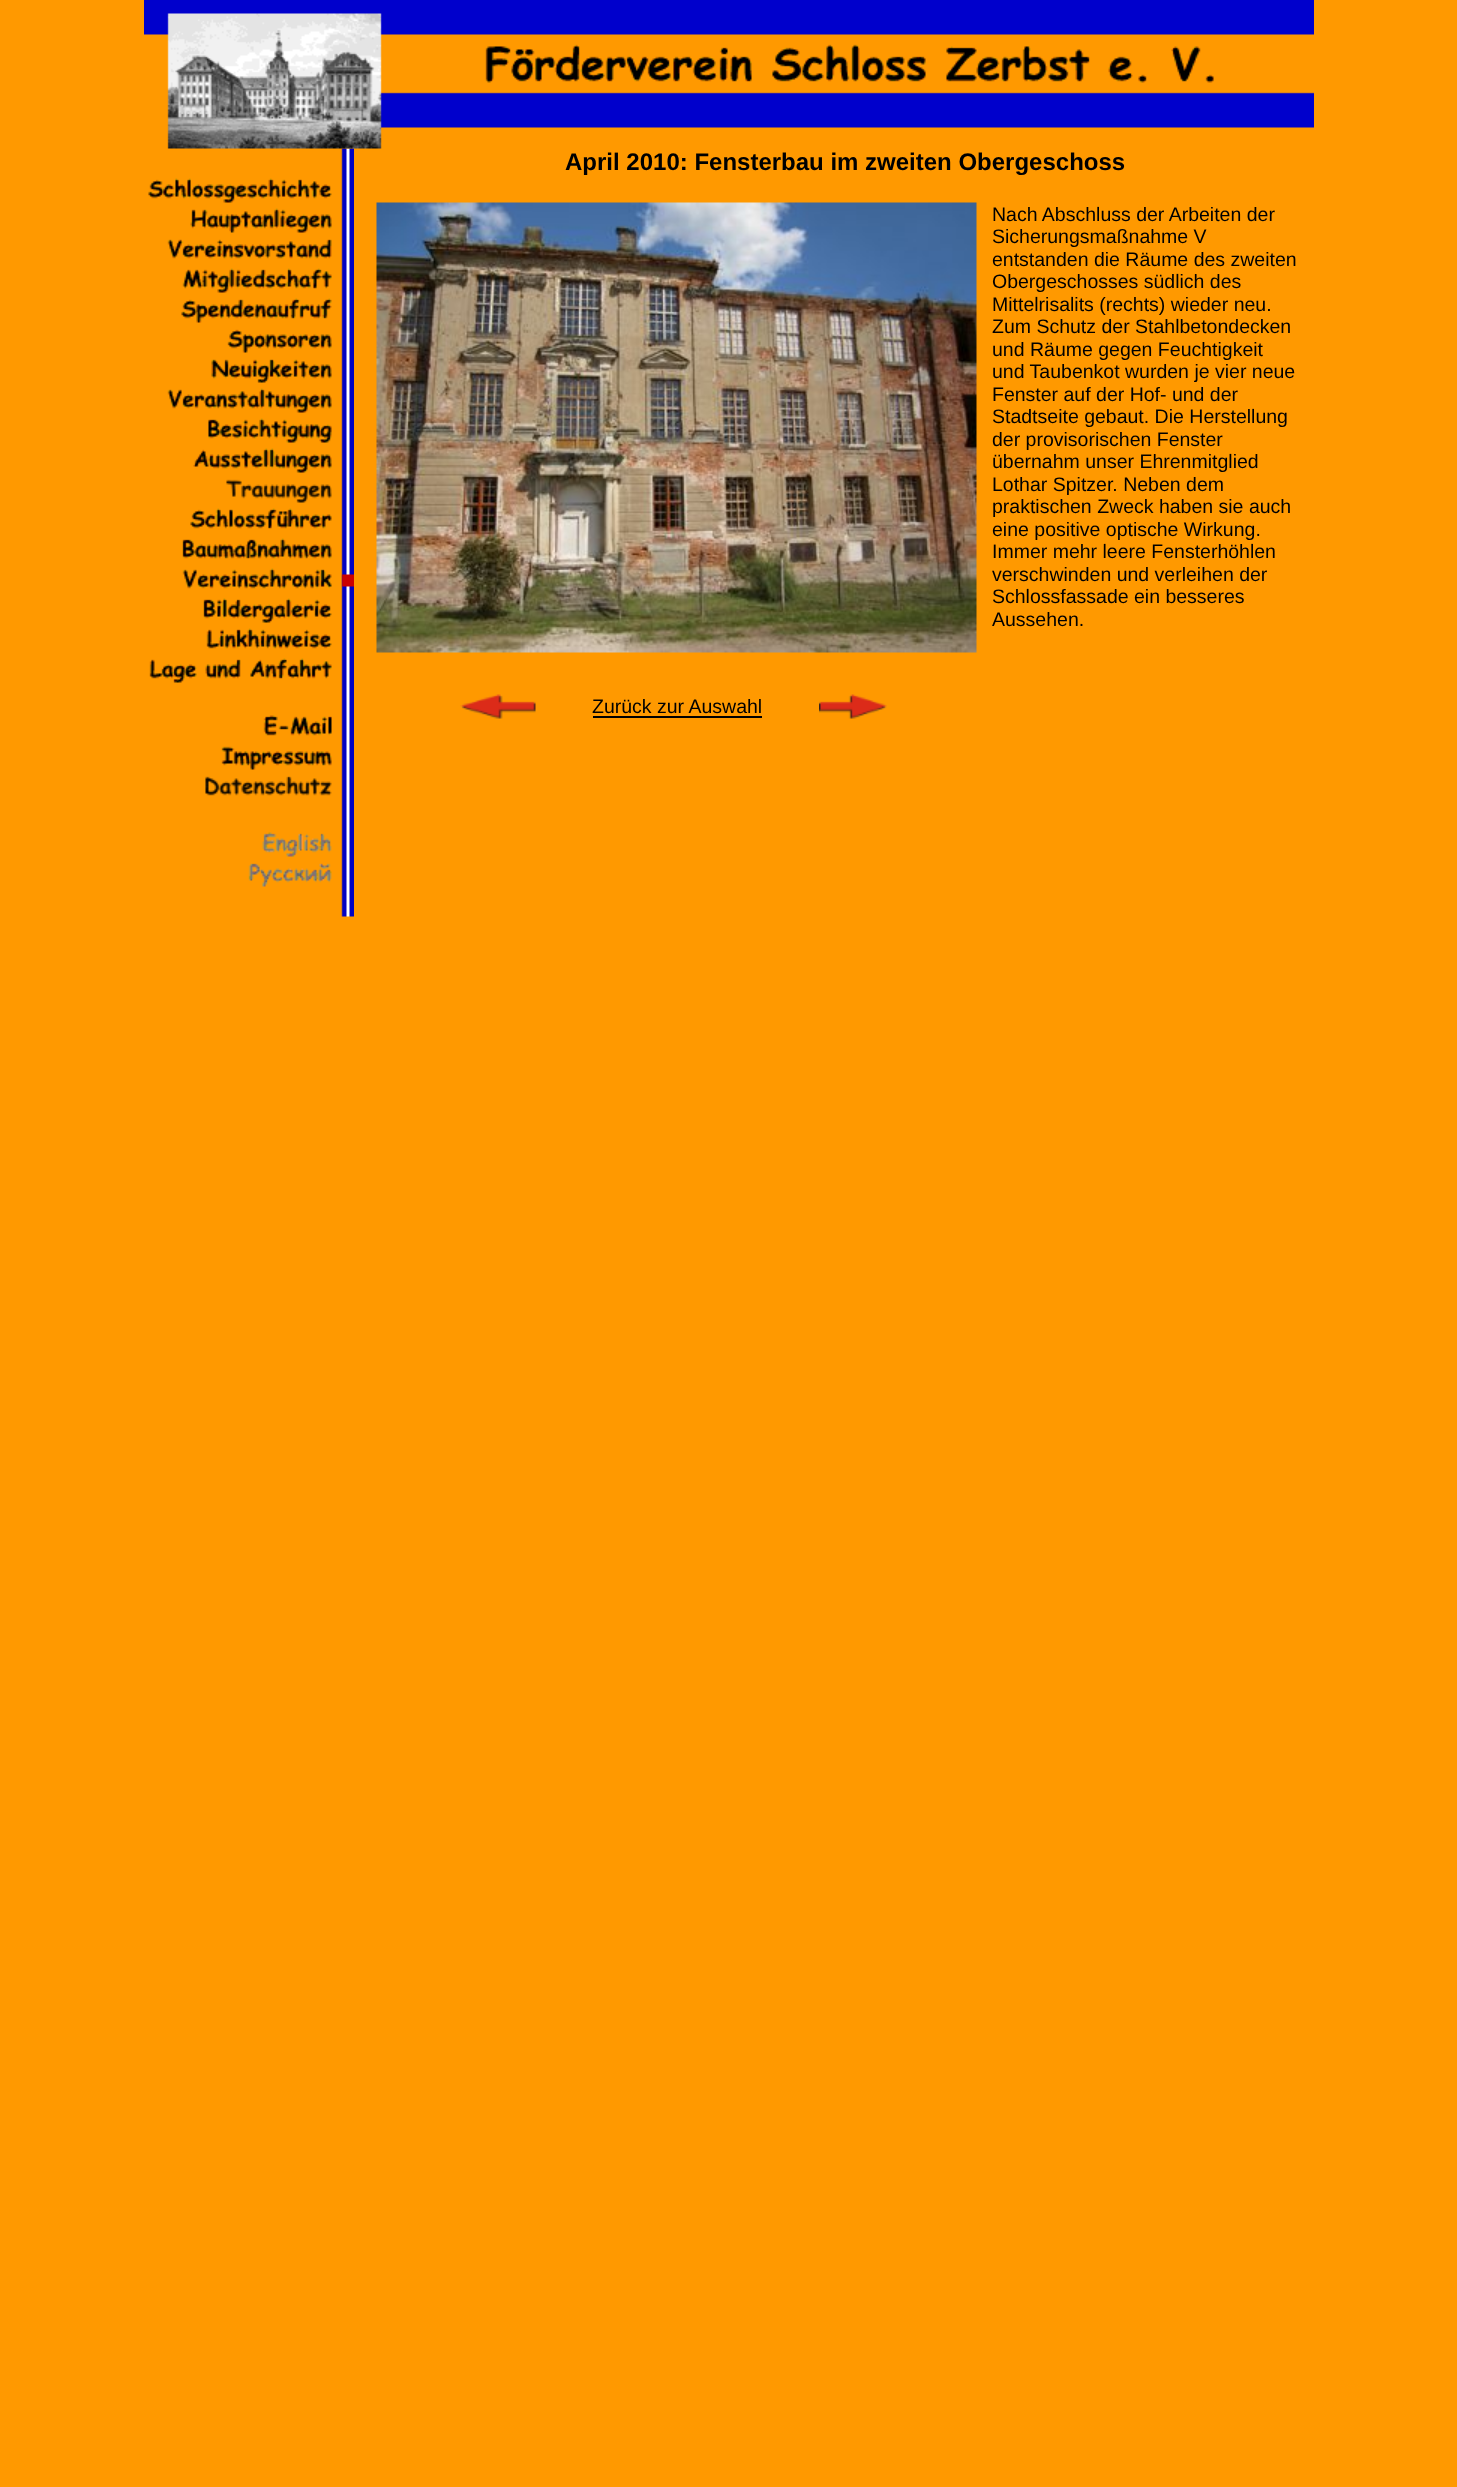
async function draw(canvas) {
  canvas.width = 1457
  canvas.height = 2487
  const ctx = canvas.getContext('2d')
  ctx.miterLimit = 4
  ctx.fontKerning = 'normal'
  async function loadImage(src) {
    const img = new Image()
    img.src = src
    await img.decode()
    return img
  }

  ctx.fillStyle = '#f90'
  ctx.fillRect(0, 0, 1457, 2487)
  ctx.drawImage(await loadImage('image1.png'), 341, 148, 13, 769)
  ctx.drawImage(await loadImage('image0.png'), 144, 0, 1170, 149)
  ctx.drawImage(await loadImage('image2.png'), 148, 178, 184, 25)
  ctx.drawImage(await loadImage('image3.png'), 190, 208, 142, 25)
  ctx.drawImage(await loadImage('image4.png'), 167, 239, 165, 20)
  ctx.drawImage(await loadImage('image5.png'), 182, 268, 150, 25)
  ctx.drawImage(await loadImage('image6.png'), 181, 298, 151, 25)
  ctx.drawImage(await loadImage('image7.png'), 227, 329, 105, 24)
  ctx.drawImage(await loadImage('image8.png'), 211, 359, 121, 24)
  ctx.drawImage(await loadImage('image9.png'), 167, 388, 165, 25)
  ctx.drawImage(await loadImage('image10.png'), 208, 418, 124, 25)
  ctx.drawImage(await loadImage('image11.png'), 193, 448, 139, 25)
  ctx.drawImage(await loadImage('image12.png'), 226, 479, 106, 24)
  ctx.drawImage(await loadImage('image13.png'), 190, 508, 142, 21)
  ctx.drawImage(await loadImage('image14.png'), 182, 538, 150, 21)
  ctx.drawImage(await loadImage('image15.png'), 182, 568, 172, 21)
  ctx.drawImage(await loadImage('image16.png'), 203, 598, 129, 25)
  ctx.drawImage(await loadImage('image17.png'), 206, 628, 126, 21)
  ctx.drawImage(await loadImage('image18.png'), 149, 658, 183, 25)
  ctx.drawImage(await loadImage('image19.png'), 263, 715, 69, 21)
  ctx.drawImage(await loadImage('image20.png'), 221, 746, 111, 24)
  ctx.drawImage(await loadImage('image21.png'), 205, 776, 127, 20)
  ctx.drawImage(await loadImage('image22.png'), 262, 832, 70, 25)
  ctx.drawImage(await loadImage('image23.png'), 248, 863, 84, 24)
  ctx.font = 'bold 24px Liberation Sans'
  ctx.fillStyle = '#000'
  ctx.fillText('April 2010: Fensterbau im zweiten Obergeschoss', 565, 170)
  ctx.font = '19.5px Liberation Sans'
  ctx.fillText('Nach Abschluss der Arbeiten der', 992, 221)
  ctx.fillText('Sicherungsmaßnahme V', 992, 243)
  ctx.fillText('entstanden die Räume des zweiten', 992, 266)
  ctx.fillText('Obergeschosses südlich des', 992, 288)
  ctx.fillText('Mittelrisalits (rechts) wieder neu.', 992, 311)
  ctx.fillText('Zum Schutz der Stahlbetondecken', 992, 333)
  ctx.fillText('und Räume gegen Feuchtigkeit', 992, 356)
  ctx.fillText('und Taubenkot wurden je vier neue', 992, 378)
  ctx.fillText('Fenster auf der Hof- und der', 992, 401)
  ctx.fillText('Stadtseite gebaut. Die Herstellung', 992, 423)
  ctx.fillText('der provisorischen Fenster', 992, 446)
  ctx.fillText('übernahm unser Ehrenmitglied', 992, 468)
  ctx.fillText('Lothar Spitzer. Neben dem', 992, 491)
  ctx.fillText('praktischen Zweck haben sie auch', 992, 513)
  ctx.fillText('eine positive optische Wirkung.', 992, 536)
  ctx.fillText('Immer mehr leere Fensterhöhlen', 992, 558)
  ctx.fillText('verschwinden und verleihen der', 992, 581)
  ctx.fillText('Schlossfassade ein besseres', 992, 603)
  ctx.fillText('Aussehen.', 992, 626)
  ctx.drawImage(await loadImage('image24.png'), 376, 202, 601, 451)
  ctx.drawImage(await loadImage('image25.png'), 460, 694, 76, 25)
  ctx.fillText('Zurück zur Auswahl', 592, 713)
  ctx.fillRect(593, 716, 169, 2)
  ctx.drawImage(await loadImage('image26.png'), 819, 694, 68, 25)
}

draw(document.querySelector('canvas'))
